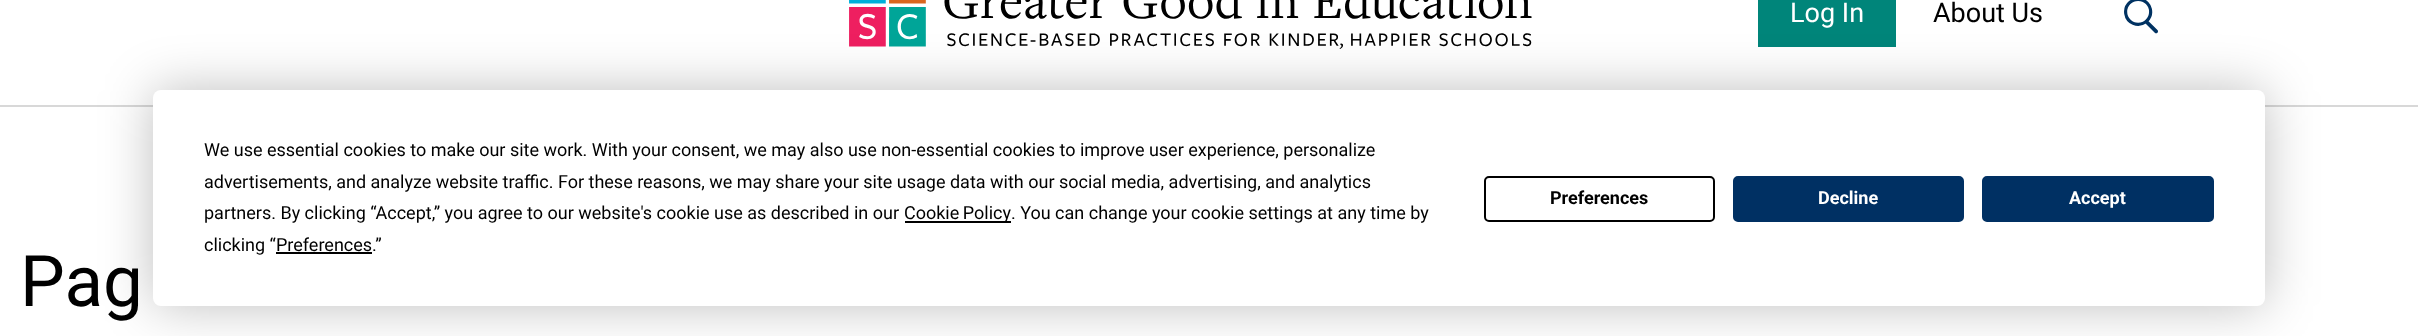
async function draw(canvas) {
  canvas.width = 2418
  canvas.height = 336
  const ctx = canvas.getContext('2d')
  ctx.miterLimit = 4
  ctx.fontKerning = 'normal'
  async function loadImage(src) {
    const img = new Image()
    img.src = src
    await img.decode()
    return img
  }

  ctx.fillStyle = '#fff'
  ctx.fillRect(0, 0, 2418, 336)
  ctx.drawImage(await loadImage('image0.png'), 849, 0, 683, 49)
  ctx.fillStyle = '#00857a'
  ctx.fillRect(1758, 0, 138, 47)
  ctx.font = '27px Roboto'
  ctx.fillStyle = '#fff'
  ctx.fillText('Log In', 1790, 22)
  ctx.fillStyle = '#000'
  ctx.fillText('About Us', 1933, 22)
  ctx.drawImage(await loadImage('image1.png'), 2124, 0, 34, 34)
  ctx.fillStyle = '#d8d8d8'
  ctx.fillRect(0, 105, 2418, 2)
  ctx.font = '71px Roboto'
  ctx.fillStyle = '#000'
  ctx.fillText('Pag', 20, 306)
  ctx.fillStyle = '#00000040'
  ctx.filter = 'blur(26px)'
  ctx.beginPath()
  ctx.roundRect(153, 90, 2112, 216, 8)
  ctx.fill()
  ctx.filter = 'none'
  ctx.fillStyle = '#fff'
  ctx.beginPath()
  ctx.roundRect(153, 90, 2112, 216, 8)
  ctx.fill()
  ctx.font = '18px Roboto'
  ctx.fillStyle = '#000'
  ctx.fillText('We use essential cookies to make our site work. With your consent, we may also use non-essential cookies to improve user experience, personalize', 204, 156)
  ctx.fillText('advertisements, and analyze website traffic. For these reasons, we may share your site usage data with our social media, advertising, and analytics', 204, 188)
  ctx.fillText('partners. By clicking “Accept,” you agree to our website\'s cookie use as described in our', 204, 219)
  ctx.fillRect(905, 221, 106, 2)
  ctx.wordSpacing = '-1px'
  ctx.fillText('Cookie Policy', 904, 219)
  ctx.wordSpacing = '0px'
  ctx.fillText('. You can change your cookie settings at any time by', 1011, 219)
  ctx.fillText('clicking “Preferences.”', 204, 251)
  ctx.fillRect(276, 252, 96, 2)
  ctx.beginPath()
  ctx.roundRect(1485, 177, 229, 44, 4)
  ctx.strokeStyle = '#000'
  ctx.lineWidth = 2
  ctx.stroke()
  ctx.font = 'bold 18px Roboto'
  ctx.fillText('Preferences', 1550, 204)
  ctx.fillStyle = '#003063'
  ctx.beginPath()
  ctx.roundRect(1734, 177, 229, 44, 4)
  ctx.fill()
  ctx.strokeStyle = '#003063'
  ctx.stroke()
  ctx.fillStyle = '#fff'
  ctx.fillText('Decline', 1818, 204)
  ctx.fillStyle = '#003063'
  ctx.beginPath()
  ctx.roundRect(1983, 177, 230, 44, 4)
  ctx.fill()
  ctx.stroke()
  ctx.fillStyle = '#fff'
  ctx.fillText('Accept', 2069, 204)
}

draw(document.querySelector('canvas'))
